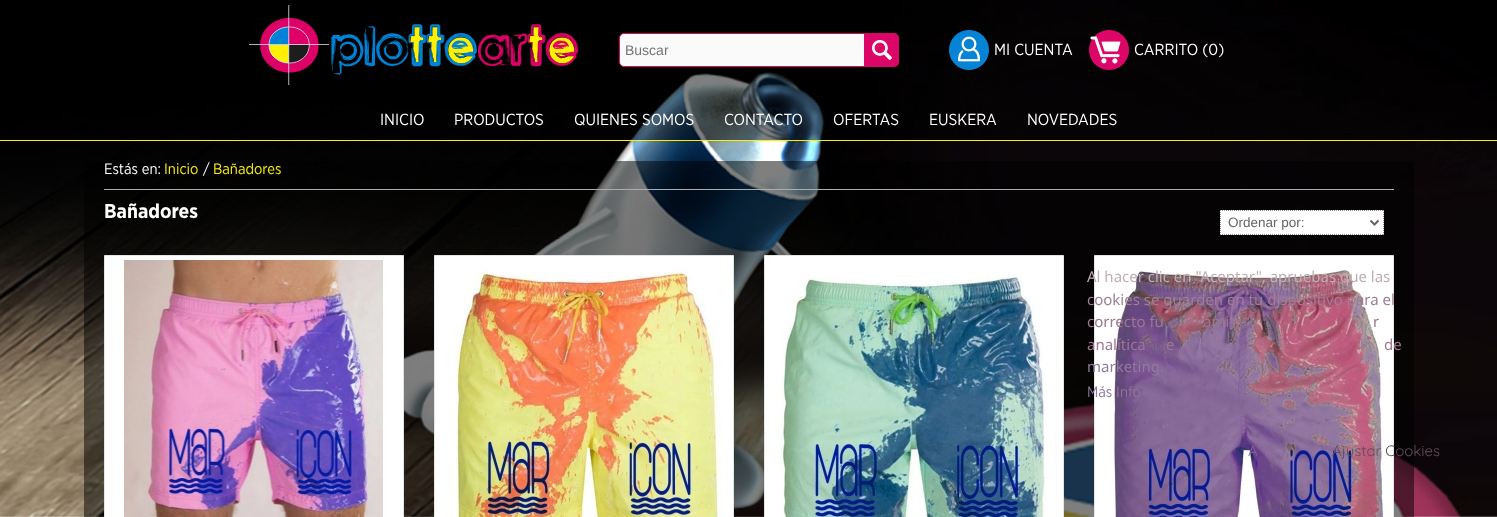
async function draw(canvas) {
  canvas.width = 1497
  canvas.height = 517
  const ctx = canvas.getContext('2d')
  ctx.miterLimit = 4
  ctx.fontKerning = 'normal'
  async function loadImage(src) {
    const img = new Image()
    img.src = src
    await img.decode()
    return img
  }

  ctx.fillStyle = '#fff'
  ctx.fillRect(0, 0, 1497, 517)
  ctx.drawImage(await loadImage('image0.png'), 0, 0, 1497, 517)
  ctx.fillStyle = '#00000080'
  ctx.fillRect(629, 0, 868, 140)
  ctx.fillStyle = '#fbef03'
  ctx.fillRect(0, 140, 1497, 1)
  ctx.drawImage(await loadImage('image1.png'), 249, 5, 329, 80)
  ctx.fillStyle = '#fafafa'
  ctx.beginPath()
  ctx.roundRect(619.5, 33.5, 245, 33, [4.5, 0, 0, 4.5])
  ctx.fill()
  ctx.strokeStyle = '#dc0568'
  ctx.stroke()
  ctx.font = '14px Liberation Sans'
  ctx.fillStyle = '#757575'
  ctx.fillText('Buscar', 625, 55)
  ctx.fillStyle = '#dc0568'
  ctx.beginPath()
  ctx.roundRect(865, 33, 34, 34, [0, 5, 5, 0])
  ctx.fill()
  ctx.drawImage(await loadImage('image2.png'), 872, 40, 20, 20)
  ctx.drawImage(await loadImage('image3.png'), 949, 30, 40, 40)
  ctx.font = '16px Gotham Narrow'
  ctx.fillStyle = '#fff'
  ctx.fillText('MI CUENTA', 994, 55)
  ctx.drawImage(await loadImage('image4.png'), 1089, 30, 40, 40)
  ctx.fillText('CARRITO (0)', 1134, 55)
  ctx.fillText('INICIO', 380, 125)
  ctx.fillText('PRODUCTOS', 454, 125)
  ctx.fillText('QUIENES SOMOS', 574, 125)
  ctx.fillText('CONTACTO', 724, 125)
  ctx.fillText('OFERTAS', 833, 125)
  ctx.fillText('EUSKERA', 929, 125)
  ctx.fillText('NOVEDADES', 1027, 125)
  ctx.fillStyle = '#00000080'
  ctx.fillRect(84, 161, 1330, 356)
  ctx.fillStyle = '#adadad'
  ctx.fillRect(104, 189, 1290, 1)
  ctx.font = '15px Gotham Narrow'
  ctx.fillStyle = '#fff'
  ctx.fillText('Estás en:', 104, 174)
  ctx.fillStyle = '#fbef03'
  ctx.fillText('Inicio', 164, 174)
  ctx.fillStyle = '#fff'
  ctx.fillText('/', 203, 174)
  ctx.fillStyle = '#fbef03'
  ctx.fillText('Bañadores', 213, 174)
  ctx.font = 'bold 20px Gotham Narrow'
  ctx.fillStyle = '#fff'
  ctx.fillText('Bañadores', 104, 218)
  ctx.fillRect(1220, 210, 164, 25)
  ctx.beginPath()
  ctx.moveTo(1220, 210.5)
  ctx.lineTo(1384, 210.5)
  ctx.strokeStyle = '#959595'
  ctx.setLineDash([1, 1])
  ctx.stroke()
  ctx.beginPath()
  ctx.moveTo(1383.5, 210)
  ctx.lineTo(1383.5, 235)
  ctx.stroke()
  ctx.beginPath()
  ctx.moveTo(1220, 234.5)
  ctx.lineTo(1384, 234.5)
  ctx.stroke()
  ctx.beginPath()
  ctx.moveTo(1220.5, 210)
  ctx.lineTo(1220.5, 235)
  ctx.stroke()
  ctx.beginPath()
  ctx.moveTo(1370.5, 220.5)
  ctx.lineTo(1374.5, 224.5)
  ctx.lineTo(1378.5, 220.5)
  ctx.strokeStyle = '#666'
  ctx.lineWidth = 2
  ctx.setLineDash([])
  ctx.stroke()
  ctx.font = '13.5px Liberation Sans'
  ctx.fillStyle = '#666'
  ctx.fillText('Ordenar por:', 1228, 227)
  ctx.fillStyle = '#fff'
  ctx.beginPath()
  ctx.rect(104.5, 255.5, 299, 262)
  ctx.fill()
  ctx.strokeStyle = '#e5e5e5'
  ctx.lineWidth = 1
  ctx.stroke()
  ctx.drawImage(await loadImage('image5.png'), 124, 260, 259, 257)
  ctx.beginPath()
  ctx.rect(434.5, 255.5, 299, 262)
  ctx.fill()
  ctx.stroke()
  ctx.drawImage(await loadImage('image6.png'), 454, 266, 269, 251)
  ctx.beginPath()
  ctx.rect(764.5, 255.5, 299, 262)
  ctx.fill()
  ctx.stroke()
  ctx.drawImage(await loadImage('image7.png'), 781, 276, 266, 241)
  ctx.beginPath()
  ctx.rect(1094.5, 255.5, 299, 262)
  ctx.fill()
  ctx.stroke()
  ctx.drawImage(await loadImage('image8.png'), 1114, 269, 270, 248)
  ctx.font = '15px Noto Sans'
  ctx.fillStyle = '#bfafb4'
  ctx.fillText('Al hacer clic en "Aceptar", apruebas que las', 1087, 282)
  ctx.fillStyle = '#9e7d96'
  ctx.fillText('cookies se guarden en tu dispositivo para el', 1087, 305)
  ctx.fillStyle = '#9e768d'
  ctx.fillText('correcto fu', 1087, 327)
  ctx.fillText('ami', 1203, 327)
  ctx.fillText('r', 1373, 327)
  ctx.fillText('analítica', 1087, 350)
  ctx.fillText('e', 1166, 350)
  ctx.fillText('i', 1360, 350)
  ctx.fillText('de', 1384, 350)
  ctx.fillStyle = '#907b9e'
  ctx.fillText('marketing.', 1087, 372)
  ctx.font = '15px Gotham Narrow'
  ctx.fillStyle = '#8e7598'
  ctx.fillText('Más Info', 1087, 397)
  ctx.font = '15px Quicksand'
  ctx.fillStyle = '#816494'
  ctx.fillText('A', 1248, 456)
  ctx.fillStyle = '#664b5a'
  ctx.fillText('Ajustar Cookies', 1332, 456)
}

draw(document.querySelector('canvas'))
